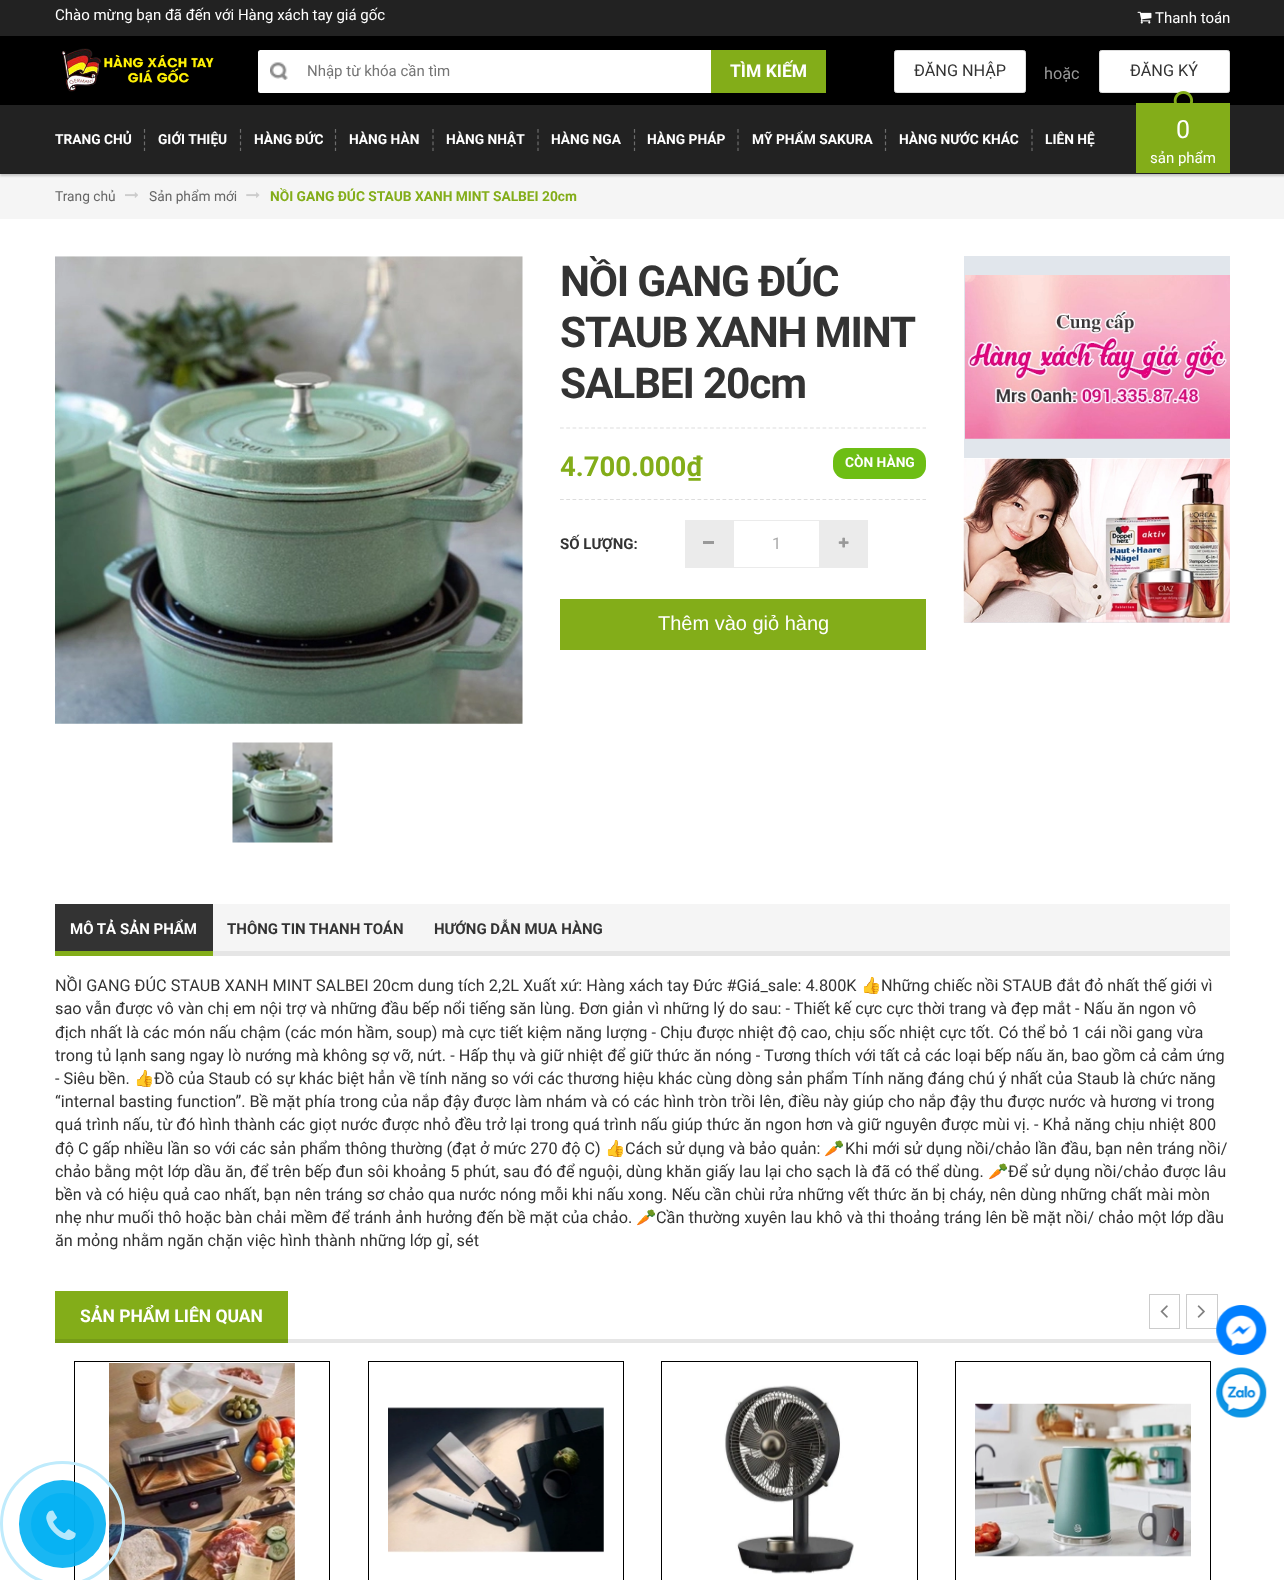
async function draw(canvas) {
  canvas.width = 1284
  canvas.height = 1580
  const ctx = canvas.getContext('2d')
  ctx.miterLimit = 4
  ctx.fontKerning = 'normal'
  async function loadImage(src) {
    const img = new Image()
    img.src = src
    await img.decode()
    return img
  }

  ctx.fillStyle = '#fff'
  ctx.fillRect(0, 0, 1284, 1580)
  ctx.fillStyle = '#e6e6e6'
  ctx.fillRect(288, 1339, 942, 4)
  ctx.fillStyle = '#000'
  ctx.fillRect(0, 36, 1284, 68)
  ctx.fillStyle = '#222'
  ctx.fillRect(0, 0, 1284, 36)
  ctx.font = '15px Roboto'
  ctx.fillStyle = '#fff'
  ctx.fillText('Chào mừng bạn đã đến với Hàng xách tay giá gốc', 55, 20)
  ctx.drawImage(await loadImage('image0.png'), 1137, 11, 15, 13)
  ctx.fillText('Thanh toán', 1155, 23)
  ctx.drawImage(await loadImage('image1.png'), 61, 48, 153, 44)
  ctx.beginPath()
  ctx.roundRect(258, 50, 568, 43, 2.5)
  ctx.fill()
  ctx.drawImage(await loadImage('image2.png'), 270, 62, 18, 18)
  ctx.fillStyle = '#757575'
  ctx.fillText('Nhập từ khóa cần tìm', 307, 76)
  ctx.fillStyle = '#83ad19'
  ctx.fillRect(711, 50, 115, 43)
  ctx.font = 'bold 17.5px Roboto'
  ctx.fillStyle = '#fff'
  ctx.fillText('TÌM KIẾM', 730, 77)
  ctx.beginPath()
  ctx.roundRect(894.5, 50.5, 131, 42, 2)
  ctx.fill()
  ctx.strokeStyle = '#ddd'
  ctx.stroke()
  ctx.font = '16.25px Roboto'
  ctx.fillStyle = '#333'
  ctx.fillText('ĐĂNG NHẬP', 914, 76)
  ctx.fillStyle = '#999'
  ctx.fillText('hoặc', 1044, 79)
  ctx.fillStyle = '#fff'
  ctx.beginPath()
  ctx.roundRect(1099.5, 50.5, 130, 42, 2)
  ctx.fill()
  ctx.stroke()
  ctx.fillStyle = '#333'
  ctx.fillText('ĐĂNG KÝ', 1130, 76)
  ctx.fillStyle = '#f5f5f5'
  ctx.fillRect(0, 174, 1284, 45)
  ctx.fillStyle = '#00000033'
  ctx.filter = 'blur(1px)'
  ctx.beginPath()
  ctx.rect(0, 106, 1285, 70)
  ctx.fill()
  ctx.filter = 'none'
  ctx.fillStyle = '#000'
  ctx.fillRect(0, 104, 1284, 1)
  ctx.fillStyle = '#222'
  ctx.fillRect(0, 105, 1284, 69)
  ctx.beginPath()
  ctx.moveTo(144.5, 129)
  ctx.lineTo(144.5, 151)
  ctx.strokeStyle = '#6d6d6d'
  ctx.lineWidth = 1.2
  ctx.setLineDash([3.75, 2.5])
  ctx.stroke()
  ctx.font = 'bold 13.75px Roboto'
  ctx.fillStyle = '#fff'
  ctx.fillText('TRANG CHỦ', 55, 144)
  ctx.beginPath()
  ctx.moveTo(240.5, 129)
  ctx.lineTo(240.5, 151)
  ctx.stroke()
  ctx.fillText('GIỚI THIỆU', 158, 144)
  ctx.beginPath()
  ctx.moveTo(335.5, 129)
  ctx.lineTo(335.5, 151)
  ctx.stroke()
  ctx.fillText('HÀNG ĐỨC', 254, 144)
  ctx.beginPath()
  ctx.moveTo(433, 129)
  ctx.lineTo(433, 151)
  ctx.stroke()
  ctx.fillText('HÀNG HÀN', 349, 144)
  ctx.beginPath()
  ctx.moveTo(538, 129)
  ctx.lineTo(538, 151)
  ctx.stroke()
  ctx.fillText('HÀNG NHẬT', 446, 144)
  ctx.beginPath()
  ctx.moveTo(634.5, 129)
  ctx.lineTo(634.5, 151)
  ctx.stroke()
  ctx.fillText('HÀNG NGA', 551, 144)
  ctx.beginPath()
  ctx.moveTo(738, 129)
  ctx.lineTo(738, 151)
  ctx.stroke()
  ctx.fillText('HÀNG PHÁP', 647, 144)
  ctx.beginPath()
  ctx.moveTo(885.5, 129)
  ctx.lineTo(885.5, 151)
  ctx.stroke()
  ctx.fillText('MỸ PHẨM SAKURA', 752, 144)
  ctx.beginPath()
  ctx.moveTo(1032, 129)
  ctx.lineTo(1032, 151)
  ctx.stroke()
  ctx.fillText('HÀNG NƯỚC KHÁC', 899, 144)
  ctx.fillText('LIÊN HỆ', 1045, 144)
  ctx.fillStyle = '#83ad19'
  ctx.fillRect(1136, 103, 94, 70)
  ctx.drawImage(await loadImage('image3.png'), 1173, 91, 20, 12)
  ctx.font = '25px Roboto'
  ctx.fillStyle = '#fff'
  ctx.fillText('0', 1176, 138)
  ctx.font = '15px Roboto'
  ctx.fillText('sản phẩm', 1150, 163)
  ctx.font = '13.75px Roboto'
  ctx.fillStyle = '#666'
  ctx.fillText('Trang chủ', 55, 201)
  ctx.drawImage(await loadImage('image4.png'), 125, 192, 13, 6)
  ctx.fillText('Sản phẩm mới', 149, 201)
  ctx.drawImage(await loadImage('image5.png'), 246, 192, 14, 6)
  ctx.font = 'bold 13.75px Roboto'
  ctx.fillStyle = '#83ad19'
  ctx.fillText('NỒI GANG ĐÚC STAUB XANH MINT SALBEI 20cm', 270, 201)
  ctx.drawImage(await loadImage('image6.png'), 55, 256, 468, 468)
  ctx.drawImage(await loadImage('image7.png'), 232, 742, 101, 101)
  ctx.beginPath()
  ctx.moveTo(560, 428)
  ctx.lineTo(926, 428)
  ctx.strokeStyle = '#ddd'
  ctx.stroke()
  ctx.save()
  ctx.beginPath()
  ctx.rect(36, 256, 1213, 623)
  ctx.clip()
  ctx.letterSpacing = '-1.25px'
  ctx.font = 'bold 42.5px Roboto'
  ctx.fillStyle = '#333'
  ctx.fillText('NỒI GANG ĐÚC', 560, 296)
  ctx.restore()
  ctx.letterSpacing = '-1.25px'
  ctx.wordSpacing = '-1px'
  ctx.font = 'bold 42.5px Roboto'
  ctx.fillStyle = '#333'
  ctx.fillText('STAUB XANH MINT', 560, 347)
  ctx.wordSpacing = '0px'
  ctx.fillText('SALBEI 20cm', 560, 398)
  ctx.beginPath()
  ctx.moveTo(560, 499.5)
  ctx.lineTo(926, 499.5)
  ctx.stroke()
  ctx.letterSpacing = '0px'
  ctx.font = 'bold 27.5px Roboto'
  ctx.fillStyle = '#83ad19'
  ctx.fillText('4.700.000₫', 560, 476)
  ctx.fillStyle = '#6dbe14'
  ctx.beginPath()
  ctx.roundRect(833, 448, 93, 31, 13)
  ctx.fill()
  ctx.font = 'bold 13.75px Roboto'
  ctx.fillStyle = '#fff'
  ctx.fillText('CÒN HÀNG', 845, 467)
  ctx.font = 'bold 15px Roboto'
  ctx.fillStyle = '#333'
  ctx.fillText('SỐ LƯỢNG:', 560, 549)
  ctx.fillStyle = '#ebebeb'
  ctx.fillRect(685, 520, 48, 48)
  ctx.fillStyle = '#999'
  ctx.fillRect(703, 541, 11, 3)
  ctx.strokeStyle = '#ebebeb'
  ctx.lineWidth = 1
  ctx.setLineDash([])
  ctx.strokeRect(733.5, 520.5, 86, 47)
  ctx.font = '16.25px Roboto'
  ctx.fillStyle = '#aaa'
  ctx.fillText('1', 772, 549)
  ctx.fillStyle = '#ebebeb'
  ctx.fillRect(820, 520, 48, 48)
  ctx.drawImage(await loadImage('image8.png'), 838, 537, 11, 11)
  ctx.fillStyle = '#83ad19'
  ctx.fillRect(560, 599, 366, 51)
  ctx.font = '20px Liberation Sans'
  ctx.fillStyle = '#fff'
  ctx.fillText('Thêm vào giỏ hàng', 658, 630)
  ctx.fillStyle = '#e1e6ec'
  ctx.fillRect(964, 256, 266, 202)
  ctx.drawImage(await loadImage('image9.png'), 965, 275, 265, 164)
  ctx.fillRect(964, 622, 266, 1)
  ctx.drawImage(await loadImage('image10.png'), 963, 458, 267, 165)
  ctx.fillStyle = '#f5f5f5'
  ctx.fillRect(213, 904, 1017, 47)
  ctx.fillStyle = '#e5e5e5'
  ctx.fillRect(213, 951, 1017, 5)
  ctx.fillStyle = '#333'
  ctx.fillRect(55, 904, 158, 47)
  ctx.fillStyle = '#83ad19'
  ctx.fillRect(55, 951, 158, 5)
  ctx.font = 'bold 15px Roboto'
  ctx.fillStyle = '#fff'
  ctx.fillText('MÔ TẢ SẢN PHẨM', 70, 934)
  ctx.fillStyle = '#333'
  ctx.fillText('THÔNG TIN THANH TOÁN', 227, 934)
  ctx.fillText('HƯỚNG DẪN MUA HÀNG', 434, 934)
  ctx.font = '16.25px Roboto'
  ctx.fillText('NỒI GANG ĐÚC STAUB XANH MINT SALBEI 20cm dung tích 2,2L Xuất xứ: Hàng xách tay Đức #Giá_sale: 4.800K', 55, 991)
  ctx.font = '16.25px Noto Color Emoji'
  ctx.fillText('👍', 861, 991)
  ctx.font = '16.25px Roboto'
  ctx.fillText('Những chiếc nồi STAUB đắt đỏ nhất thế giới vì', 881, 991)
  ctx.fillText('sao vẫn được vô vàn chị em nội trợ và những đầu bếp nổi tiếng săn lùng. Đơn giản vì những lý do sau: - Thiết kế cực cực thời trang và đẹp mắt - Nấu ăn ngon vô', 55, 1014)
  ctx.fillText('địch nhất là các món nấu chậm (các món hầm, soup) mà cực tiết kiệm năng lượng - Chịu được nhiệt độ cao, chịu sốc nhiệt cực tốt. Có thể bỏ 1 cái nồi gang vừa', 55, 1038)
  ctx.fillText('trong tủ lạnh sang ngay lò nướng mà không sợ vỡ, nứt. - Hấp thụ và giữ nhiệt để giữ thức ăn nóng - Tương thích với tất cả các loại bếp nấu ăn, bao gồm cả cảm ứng', 55, 1061)
  ctx.fillText('- Siêu bền.', 55, 1084)
  ctx.font = '16.25px Noto Color Emoji'
  ctx.fillText('👍', 134, 1084)
  ctx.font = '16.25px Roboto'
  ctx.fillText('Đồ của Staub có sự khác biệt hẳn về tính năng so với các thương hiệu khác cùng dòng sản phẩm', 154, 1084)
  ctx.fillText('Tính năng đáng chú ý nhất của Staub là chức năng', 852, 1084)
  ctx.fillText('“internal basting function”. Bề mặt phía trong của nắp đậy được làm nhám và có các hình tròn trồi lên, điều này giúp cho nắp đậy thu được nước và hương vi trong', 55, 1107)
  ctx.fillText('quá trình nấu, từ đó hình thành các giọt nước được nhỏ đều trở lại trong quá trình nấu giúp thức ăn ngon hơn và giữ nguyên được mùi vị. - Khả năng chịu nhiệt 800', 55, 1130)
  ctx.fillText('độ C gấp nhiều lần so với các sản phẩm thông thường (đạt ở mức 270 độ C)', 55, 1154)
  ctx.font = '16.25px Noto Color Emoji'
  ctx.fillText('👍', 605, 1154)
  ctx.font = '16.25px Roboto'
  ctx.fillText('Cách sử dụng và bảo quản:', 625, 1154)
  ctx.font = '16.25px Noto Color Emoji'
  ctx.fillText('🥕', 824, 1154)
  ctx.font = '16.25px Roboto'
  ctx.fillText('Khi mới sử dụng nồi/chảo lần đầu, bạn nên tráng nồi/', 845, 1154)
  ctx.fillText('chảo bằng một lớp dầu ăn, để trên bếp đun sôi khoảng 5 phút, sau đó để nguội, dùng khăn giấy lau lại cho sạch là đã có thể dùng.', 55, 1177)
  ctx.font = '16.25px Noto Color Emoji'
  ctx.fillText('🥕', 988, 1177)
  ctx.font = '16.25px Roboto'
  ctx.fillText('Để sử dụng nồi/chảo được lâu', 1008, 1177)
  ctx.fillText('bền và có hiệu quả cao nhất, bạn nên tráng sơ chảo qua nước nóng mỗi khi nấu xong. Nếu cần chùi rửa những vết thức ăn bị cháy, nên dùng những chất mài mòn', 55, 1200)
  ctx.fillText('nhẹ như muối thô hoặc bàn chải mềm để tránh ảnh hưởng đến bề mặt của chảo.', 55, 1223)
  ctx.font = '16.25px Noto Color Emoji'
  ctx.fillText('🥕', 636, 1223)
  ctx.font = '16.25px Roboto'
  ctx.fillText('Cần thường xuyên lau khô và thi thoảng tráng lên bề mặt nồi/ chảo một lớp dầu', 656, 1223)
  ctx.fillText('ăn mỏng nhằm ngăn chặn việc hình thành những lớp gỉ, sét', 55, 1246)
  ctx.strokeStyle = '#ccc'
  ctx.strokeRect(1149.5, 1294.5, 30, 34)
  ctx.drawImage(await loadImage('image11.png'), 1160, 1305, 8, 13)
  ctx.strokeRect(1186.5, 1294.5, 31, 34)
  ctx.drawImage(await loadImage('image12.png'), 1197, 1305, 8, 13)
  ctx.strokeStyle = '#000'
  ctx.strokeRect(74.5, 1361.5, 255, 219)
  ctx.drawImage(await loadImage('image13.png'), 109, 1363, 186, 217)
  ctx.strokeRect(368.5, 1361.5, 255, 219)
  ctx.drawImage(await loadImage('image14.png'), 388, 1407, 216, 146)
  ctx.strokeRect(661.5, 1361.5, 256, 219)
  ctx.drawImage(await loadImage('image15.png'), 724, 1385, 130, 189)
  ctx.strokeRect(955.5, 1361.5, 255, 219)
  ctx.drawImage(await loadImage('image16.png'), 975, 1403, 216, 154)
  ctx.fillStyle = '#83ad19'
  ctx.fillRect(55, 1291, 233, 48)
  ctx.fillStyle = '#769c17'
  ctx.fillRect(55, 1339, 233, 4)
  ctx.font = 'bold 17.5px Roboto'
  ctx.fillStyle = '#fff'
  ctx.fillText('SẢN PHẨM LIÊN QUAN', 80, 1322)
  ctx.drawImage(await loadImage('image17.png'), 1216, 1305, 51, 50)
  ctx.drawImage(await loadImage('image18.png'), 1216, 1367, 51, 51)
  ctx.beginPath()
  ctx.arc(62.5, 1523.5, 61, 0, 2 * Math.PI)
  ctx.strokeStyle = '#bfebfc'
  ctx.lineWidth = 3
  ctx.stroke()
  ctx.fillStyle = '#00aff2e6'
  ctx.beginPath()
  ctx.roundRect(19, 1480, 87, 88, 43.5)
  ctx.fill()
  ctx.fillStyle = '#00aff2b3'
  ctx.beginPath()
  ctx.roundRect(31, 1493, 63, 62, 31)
  ctx.fill()
  ctx.drawImage(await loadImage('image19.png'), 46, 1510, 30, 30)
}

draw(document.querySelector('canvas'))
